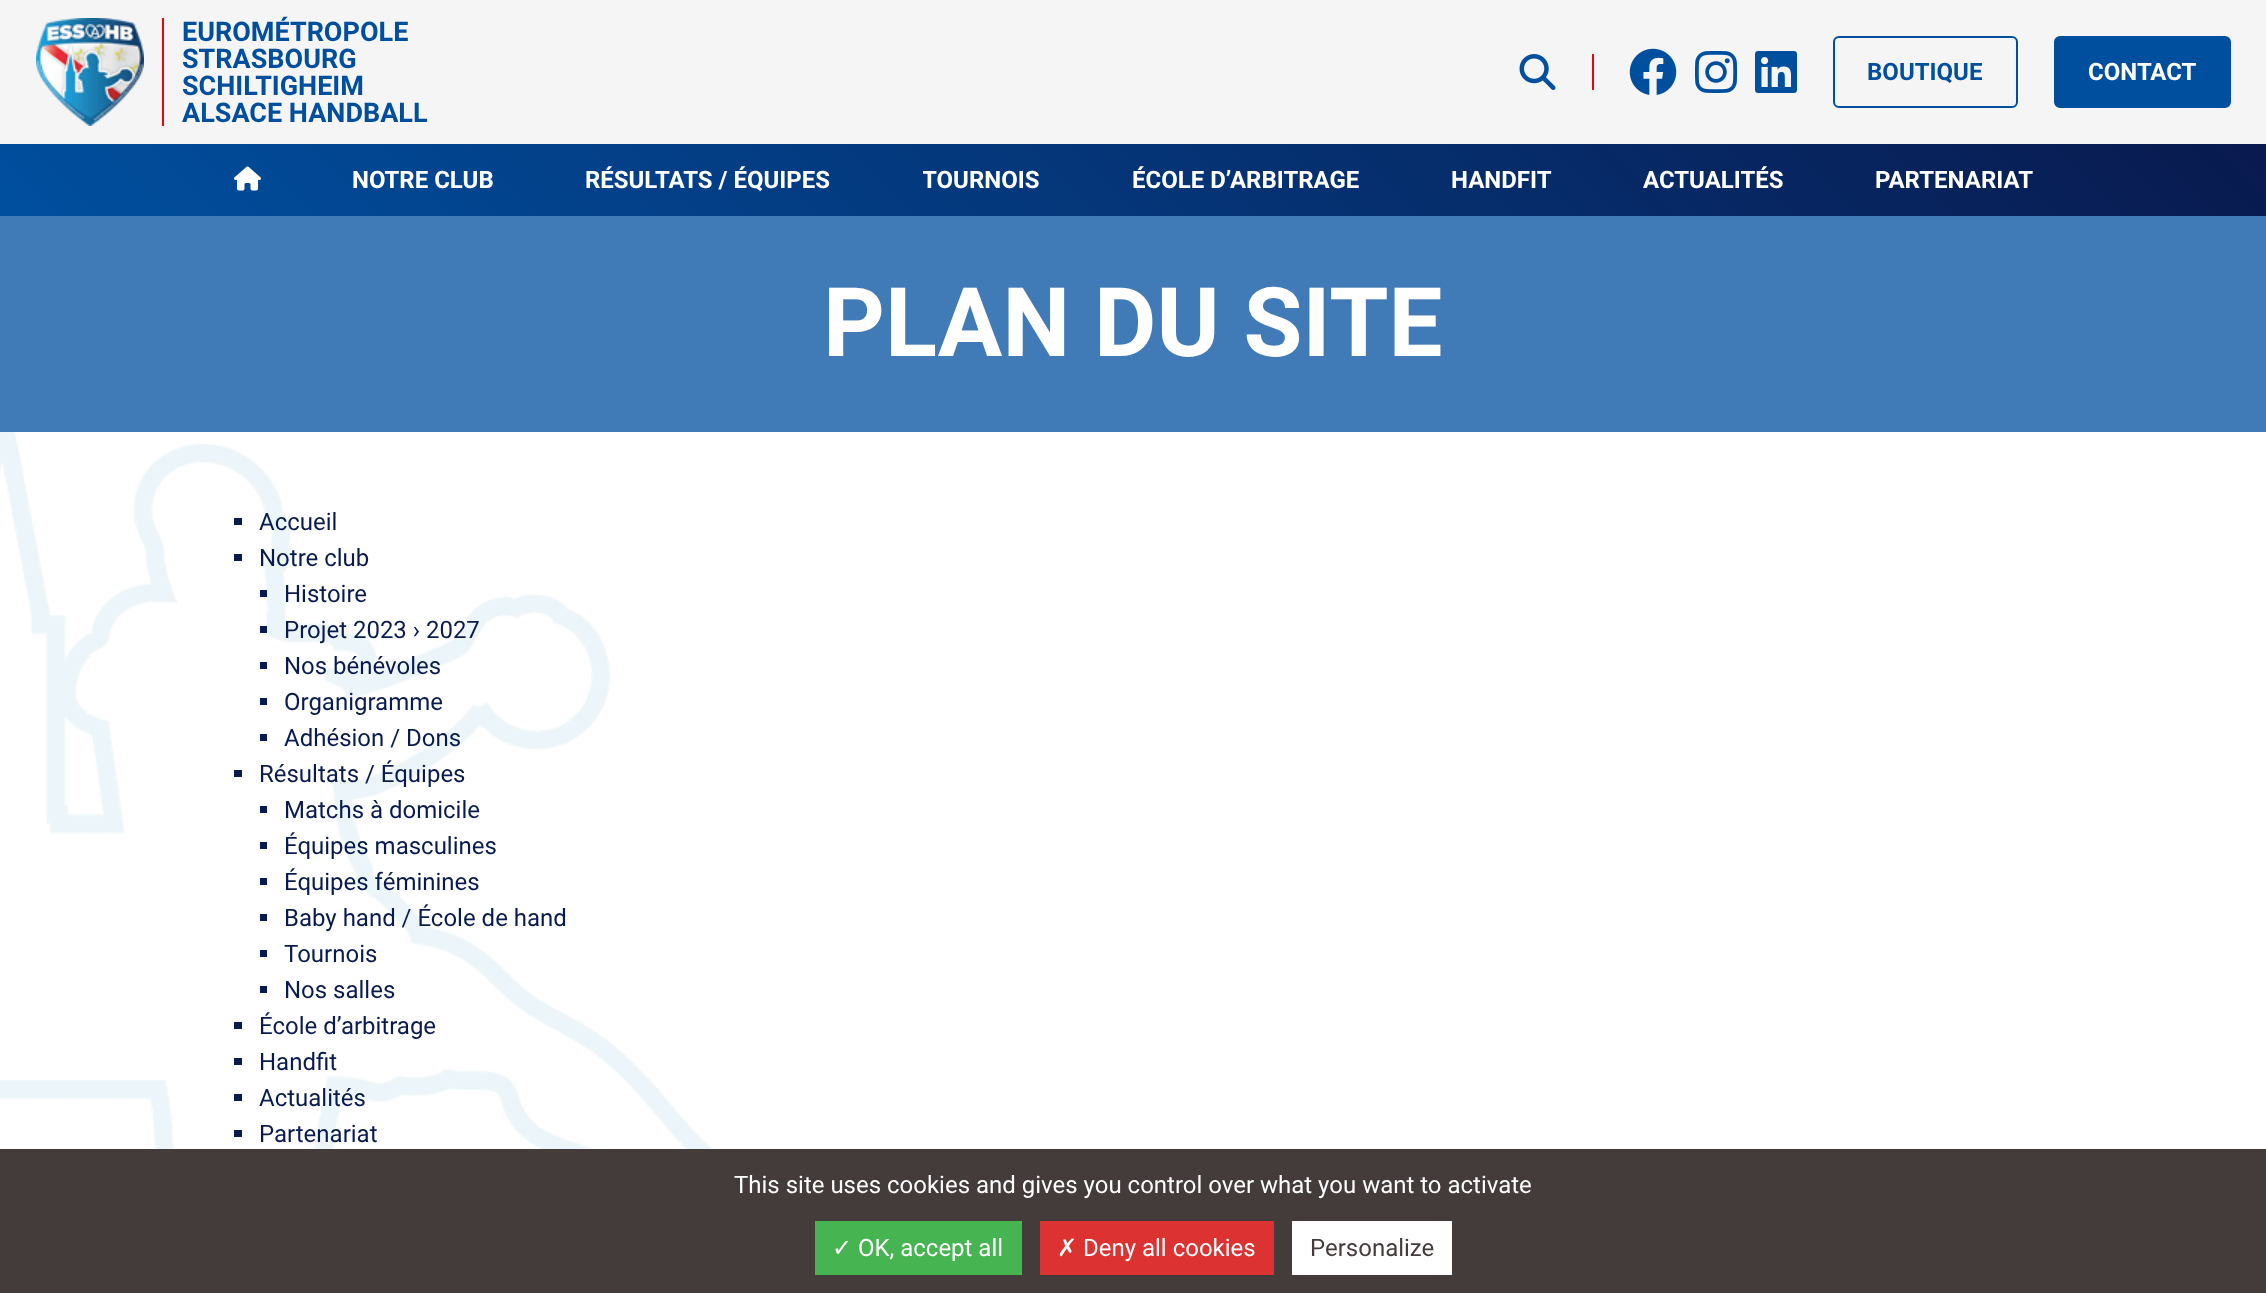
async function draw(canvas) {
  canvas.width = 2266
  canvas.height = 1293
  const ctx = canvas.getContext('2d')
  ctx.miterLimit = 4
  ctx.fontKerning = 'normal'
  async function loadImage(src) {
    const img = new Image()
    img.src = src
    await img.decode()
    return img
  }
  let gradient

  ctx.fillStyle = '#fff'
  ctx.fillRect(0, 0, 2266, 1293)
  ctx.fillStyle = '#f5f5f5'
  ctx.fillRect(0, 0, 2266, 144)
  ctx.drawImage(await loadImage('image0.png'), 36, 18, 108, 108)
  ctx.fillStyle = '#e30613'
  ctx.fillRect(162, 18, 2, 108)
  ctx.font = 'bold 27px Roboto'
  ctx.fillStyle = '#004f9f'
  ctx.fillText('EUROMÉTROPOLE', 182, 41)
  ctx.fillText('STRASBOURG', 182, 68)
  ctx.fillText('SCHILTIGHEIM', 182, 95)
  ctx.fillText('ALSACE HANDBALL', 182, 122)
  ctx.fillStyle = '#e30613'
  ctx.fillRect(1592, 54, 2, 36)
  ctx.drawImage(await loadImage('image1.png'), 1519, 54, 37, 36)
  ctx.drawImage(await loadImage('image2.png'), 1629, 48, 48, 47)
  ctx.drawImage(await loadImage('image3.png'), 1695, 51, 42, 42)
  ctx.drawImage(await loadImage('image4.png'), 1755, 51, 42, 42)
  ctx.beginPath()
  ctx.roundRect(1834, 37, 183, 70, 5)
  ctx.strokeStyle = '#004f9f'
  ctx.lineWidth = 2
  ctx.stroke()
  ctx.font = 'bold 24px Roboto'
  ctx.fillStyle = '#004f9f'
  ctx.fillText('BOUTIQUE', 1867, 80)
  ctx.beginPath()
  ctx.roundRect(2055, 37, 175, 70, 5)
  ctx.fill()
  ctx.stroke()
  ctx.fillStyle = '#fff'
  ctx.fillText('CONTACT', 2088, 80)
  gradient = ctx.createLinearGradient(549, 765, 1718, -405)
  gradient.addColorStop(0, '#004f9f')
  gradient.addColorStop(1, '#091a4f')
  ctx.fillStyle = gradient
  ctx.fillRect(0, 144, 2266, 72)
  ctx.drawImage(await loadImage('image5.png'), 234, 166, 27, 25)
  ctx.fillStyle = '#fff'
  ctx.fillText('NOTRE CLUB', 352, 188)
  ctx.fillText('RÉSULTATS / ÉQUIPES', 585, 188)
  ctx.save()
  ctx.beginPath()
  ctx.rect(923, 144, 117, 66)
  ctx.clip()
  ctx.fillText('TOURNOIS', 922, 188)
  ctx.restore()
  ctx.fillText('ÉCOLE D’ARBITRAGE', 1132, 188)
  ctx.fillText('HANDFIT', 1451, 188)
  ctx.fillText('ACTUALITÉS', 1643, 188)
  ctx.fillText('PARTENARIAT', 1875, 188)
  ctx.fillStyle = '#407bb7'
  ctx.fillRect(0, 216, 2266, 216)
  ctx.font = 'bold 96px Roboto'
  ctx.fillStyle = '#fff'
  ctx.fillText('PLAN DU SITE', 823, 356)
  ctx.drawImage(await loadImage('image6.png'), 0, 432, 713, 717)
  ctx.fillStyle = '#091a4f'
  ctx.fillRect(234, 518, 8, 7)
  ctx.font = '24px Roboto'
  ctx.fillText('Accueil', 259, 530)
  ctx.fillRect(234, 554, 8, 7)
  ctx.fillText('Notre club', 259, 566)
  ctx.fillRect(260, 590, 7, 7)
  ctx.fillText('Histoire', 284, 602)
  ctx.fillRect(260, 626, 7, 7)
  ctx.fillText('Projet 2023 › 2027', 284, 638)
  ctx.fillRect(260, 662, 7, 7)
  ctx.fillText('Nos bénévoles', 284, 674)
  ctx.fillRect(260, 698, 7, 7)
  ctx.fillText('Organigramme', 284, 710)
  ctx.fillRect(260, 734, 7, 7)
  ctx.fillText('Adhésion / Dons', 284, 746)
  ctx.fillRect(234, 770, 8, 7)
  ctx.fillText('Résultats / Équipes', 259, 782)
  ctx.fillRect(260, 806, 7, 7)
  ctx.fillText('Matchs à domicile', 284, 818)
  ctx.fillRect(260, 842, 7, 7)
  ctx.fillText('Équipes masculines', 284, 854)
  ctx.fillRect(260, 878, 7, 7)
  ctx.fillText('Équipes féminines', 284, 890)
  ctx.fillRect(260, 914, 7, 7)
  ctx.fillText('Baby hand / École de hand', 284, 926)
  ctx.fillRect(260, 950, 7, 7)
  ctx.fillText('Tournois', 284, 962)
  ctx.fillRect(260, 986, 7, 7)
  ctx.fillText('Nos salles', 284, 998)
  ctx.fillRect(234, 1022, 8, 7)
  ctx.fillText('École d’arbitrage', 259, 1034)
  ctx.fillRect(234, 1058, 8, 7)
  ctx.fillText('Handfit', 259, 1070)
  ctx.fillRect(234, 1094, 8, 7)
  ctx.fillText('Actualités', 259, 1106)
  ctx.fillRect(234, 1130, 8, 7)
  ctx.fillText('Partenariat', 259, 1142)
  ctx.fillStyle = '#443b3b'
  ctx.fillRect(0, 1149, 2266, 144)
  ctx.fillStyle = '#fff'
  ctx.fillText('This site uses cookies and gives you control over what you want to activate', 734, 1193)
  ctx.fillStyle = '#46b450'
  ctx.fillRect(815, 1221, 207, 54)
  ctx.font = '24px DejaVu Sans'
  ctx.fillStyle = '#fff'
  ctx.fillText('✓', 832, 1256)
  ctx.font = '24px Roboto'
  ctx.fillText('OK, accept all', 858, 1256)
  ctx.fillStyle = '#dc3232'
  ctx.fillRect(1040, 1221, 234, 54)
  ctx.font = '24px DejaVu Sans'
  ctx.fillStyle = '#fff'
  ctx.fillText('✗', 1057, 1256)
  ctx.font = '24px Roboto'
  ctx.fillText('Deny all cookies', 1083, 1256)
  ctx.fillRect(1292, 1221, 160, 54)
  ctx.fillStyle = '#443b3b'
  ctx.fillText('Personalize', 1310, 1256)
}

draw(document.querySelector('canvas'))
